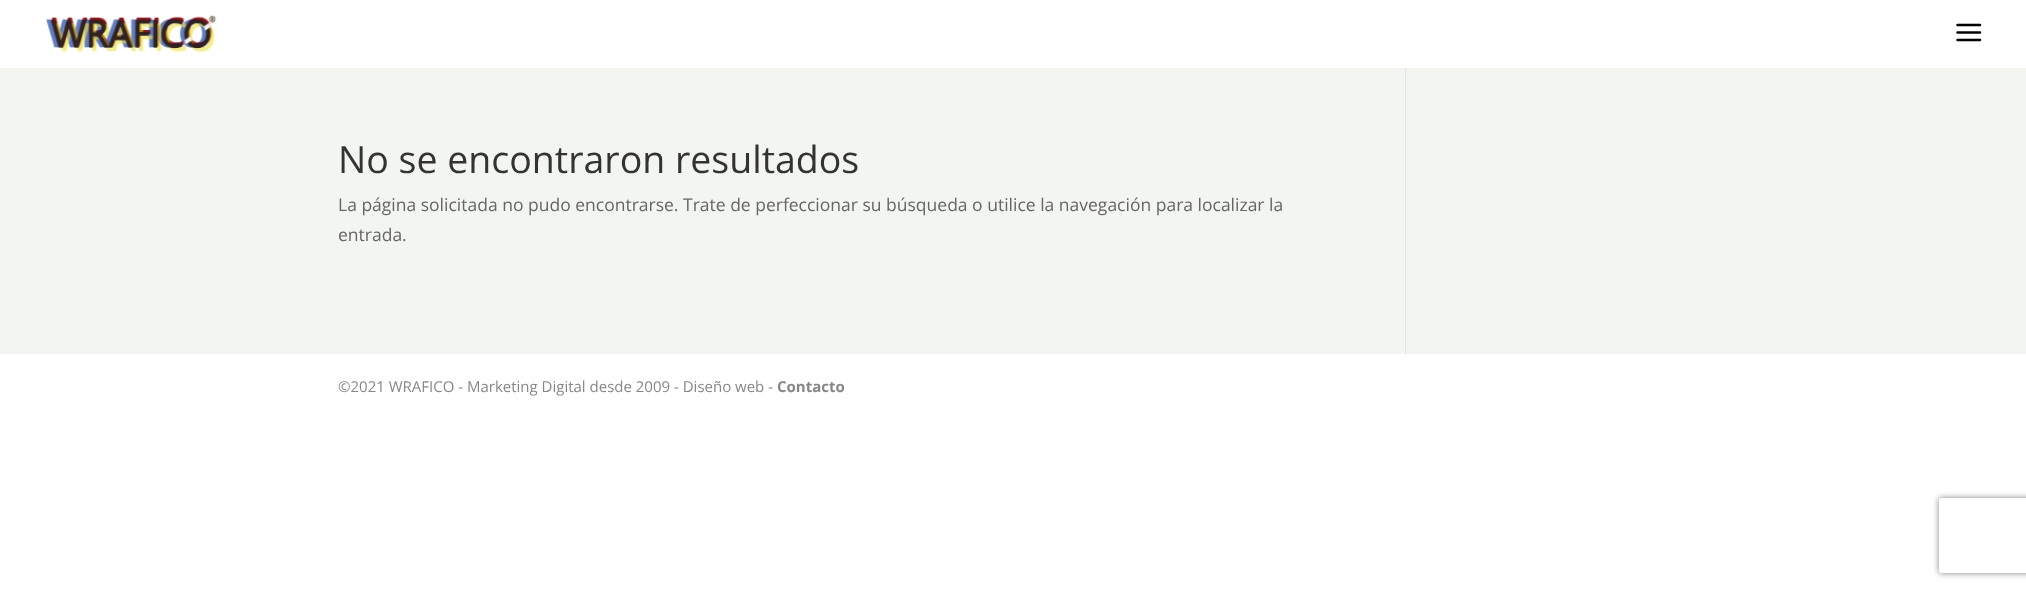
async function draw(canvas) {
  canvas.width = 2026
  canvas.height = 589
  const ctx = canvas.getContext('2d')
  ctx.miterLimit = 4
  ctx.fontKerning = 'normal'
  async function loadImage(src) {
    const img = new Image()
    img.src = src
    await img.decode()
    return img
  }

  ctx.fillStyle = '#fff'
  ctx.fillRect(0, 0, 2026, 589)
  ctx.drawImage(await loadImage('image0.png'), 46, 15, 171, 37)
  ctx.drawImage(await loadImage('image1.png'), 1956, 23, 26, 19)
  ctx.fillStyle = '#f2f5f0'
  ctx.fillRect(0, 68, 2026, 286)
  ctx.font = '37.5px Open Sans'
  ctx.fillStyle = '#333'
  ctx.fillText('No se encontraron resultados', 338, 173)
  ctx.font = '17.5px Open Sans'
  ctx.fillStyle = '#666'
  ctx.fillText('La página solicitada no pudo encontrarse. Trate de perfeccionar su búsqueda o utilice la navegación para localizar la', 338, 211)
  ctx.fillText('entrada.', 338, 241)
  ctx.fillStyle = '#e2e2e2'
  ctx.fillRect(1405, 68, 1, 286)
  ctx.font = '15px Open Sans'
  ctx.fillStyle = '#878787'
  ctx.fillText('©2021 WRAFICO - Marketing Digital desde 2009 - Diseño web -', 338, 392)
  ctx.font = 'bold 15px Open Sans'
  ctx.fillText('Contacto', 777, 392)
  ctx.save()
  ctx.beginPath()
  ctx.moveTo(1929, 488)
  ctx.lineTo(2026, 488)
  ctx.lineTo(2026, 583)
  ctx.lineTo(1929, 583)
  ctx.closePath()
  ctx.moveTo(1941.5, 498)
  ctx.lineTo(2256.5, 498)
  ctx.bezierCurveTo(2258, 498, 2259, 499, 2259, 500.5)
  ctx.lineTo(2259, 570.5)
  ctx.bezierCurveTo(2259, 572, 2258, 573, 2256.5, 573)
  ctx.lineTo(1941.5, 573)
  ctx.bezierCurveTo(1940, 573, 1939, 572, 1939, 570.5)
  ctx.lineTo(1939, 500.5)
  ctx.bezierCurveTo(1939, 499, 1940, 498, 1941.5, 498)
  ctx.closePath()
  ctx.clip('evenodd')
  ctx.fillStyle = '#808080'
  ctx.filter = 'blur(3px)'
  ctx.beginPath()
  ctx.roundRect(1939, 498, 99, 75, 2.5)
  ctx.fill()
  ctx.filter = 'none'
  ctx.restore()
}

draw(document.querySelector('canvas'))
